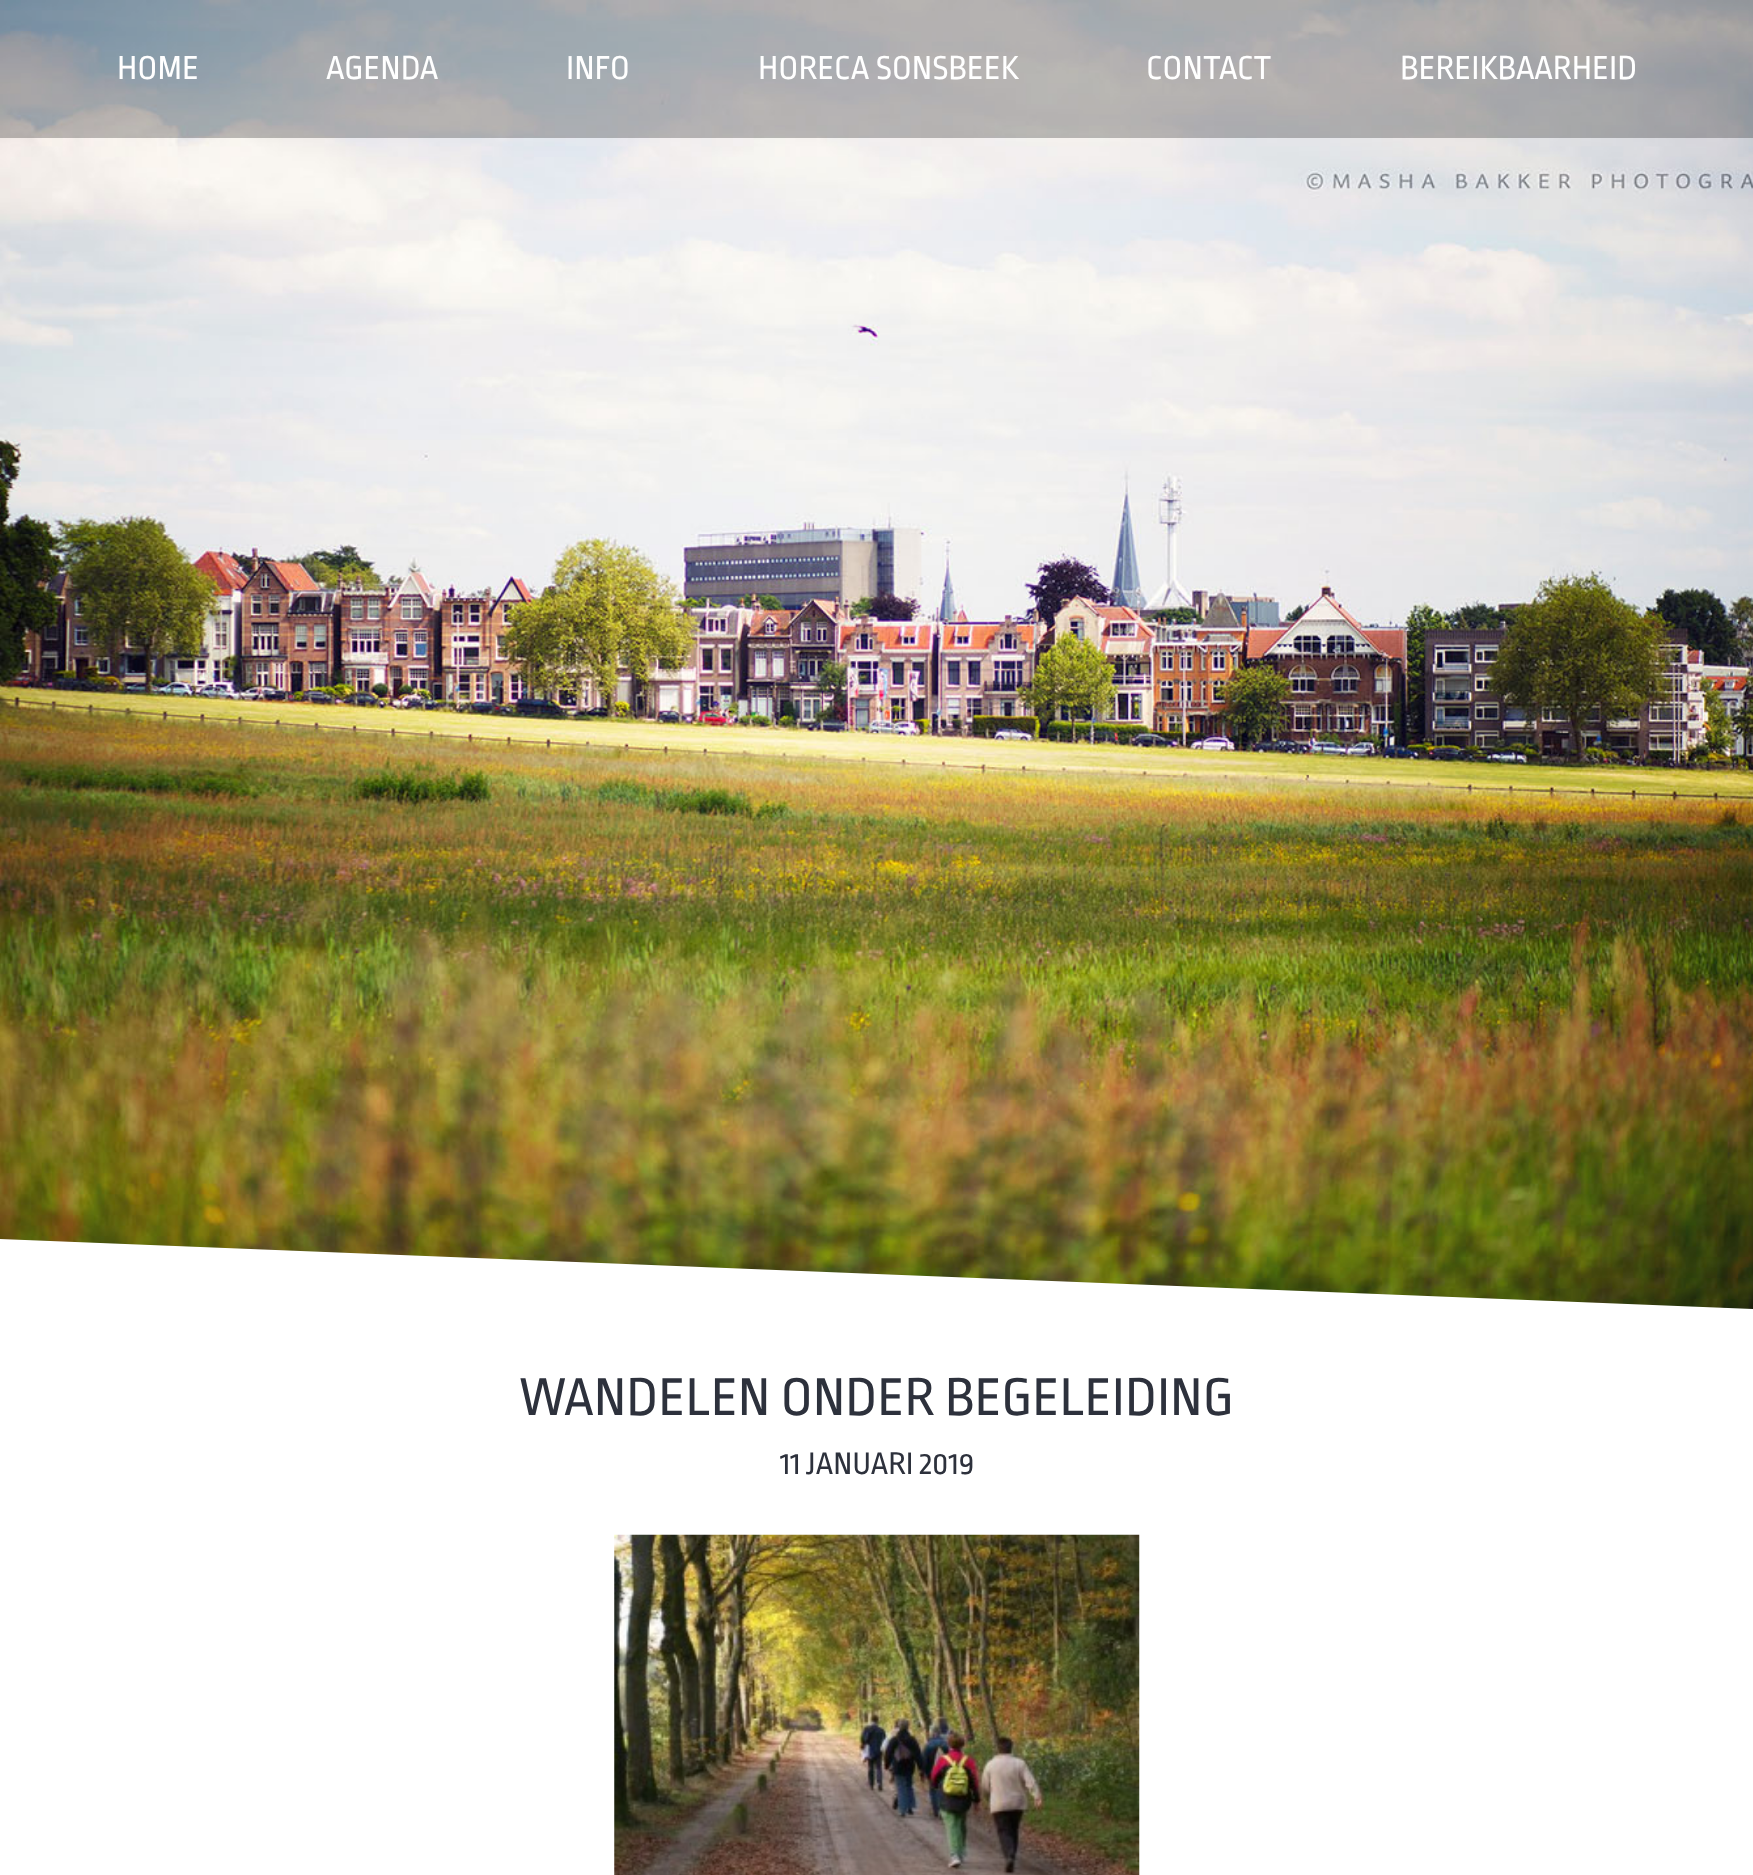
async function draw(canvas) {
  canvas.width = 1753
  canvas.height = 1875
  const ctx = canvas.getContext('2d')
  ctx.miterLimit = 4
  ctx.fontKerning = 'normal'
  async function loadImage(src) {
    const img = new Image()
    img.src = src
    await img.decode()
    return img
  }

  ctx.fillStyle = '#fff'
  ctx.fillRect(0, 0, 1753, 1875)
  ctx.drawImage(await loadImage('image0.png'), 0, 0, 1753, 1309)
  ctx.beginPath()
  ctx.moveTo(0, 1309)
  ctx.lineTo(0, 1239)
  ctx.lineTo(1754, 1309)
  ctx.closePath()
  ctx.fill()
  ctx.fillStyle = '#00000040'
  ctx.fillRect(0, 0, 1753, 138)
  ctx.font = '35px Ropa Sans'
  ctx.fillStyle = '#fff'
  ctx.fillText('HOME', 117, 79)
  ctx.fillText('AGENDA', 326, 79)
  ctx.fillText('INFO', 566, 79)
  ctx.fillText('HORECA SONSBEEK', 758, 79)
  ctx.fillText('CONTACT', 1146, 79)
  ctx.fillText('BEREIKBAARHEID', 1400, 79)
  ctx.font = '56px Ropa Sans'
  ctx.fillStyle = '#2d313c'
  ctx.fillText('WANDELEN ONDER BEGELEIDING', 519, 1415)
  ctx.font = '32.75px Ropa Sans'
  ctx.fillText('11 JANUARI 2019', 780, 1474)
  ctx.drawImage(await loadImage('image1.png'), 614, 1534, 526, 341)
}

draw(document.querySelector('canvas'))
